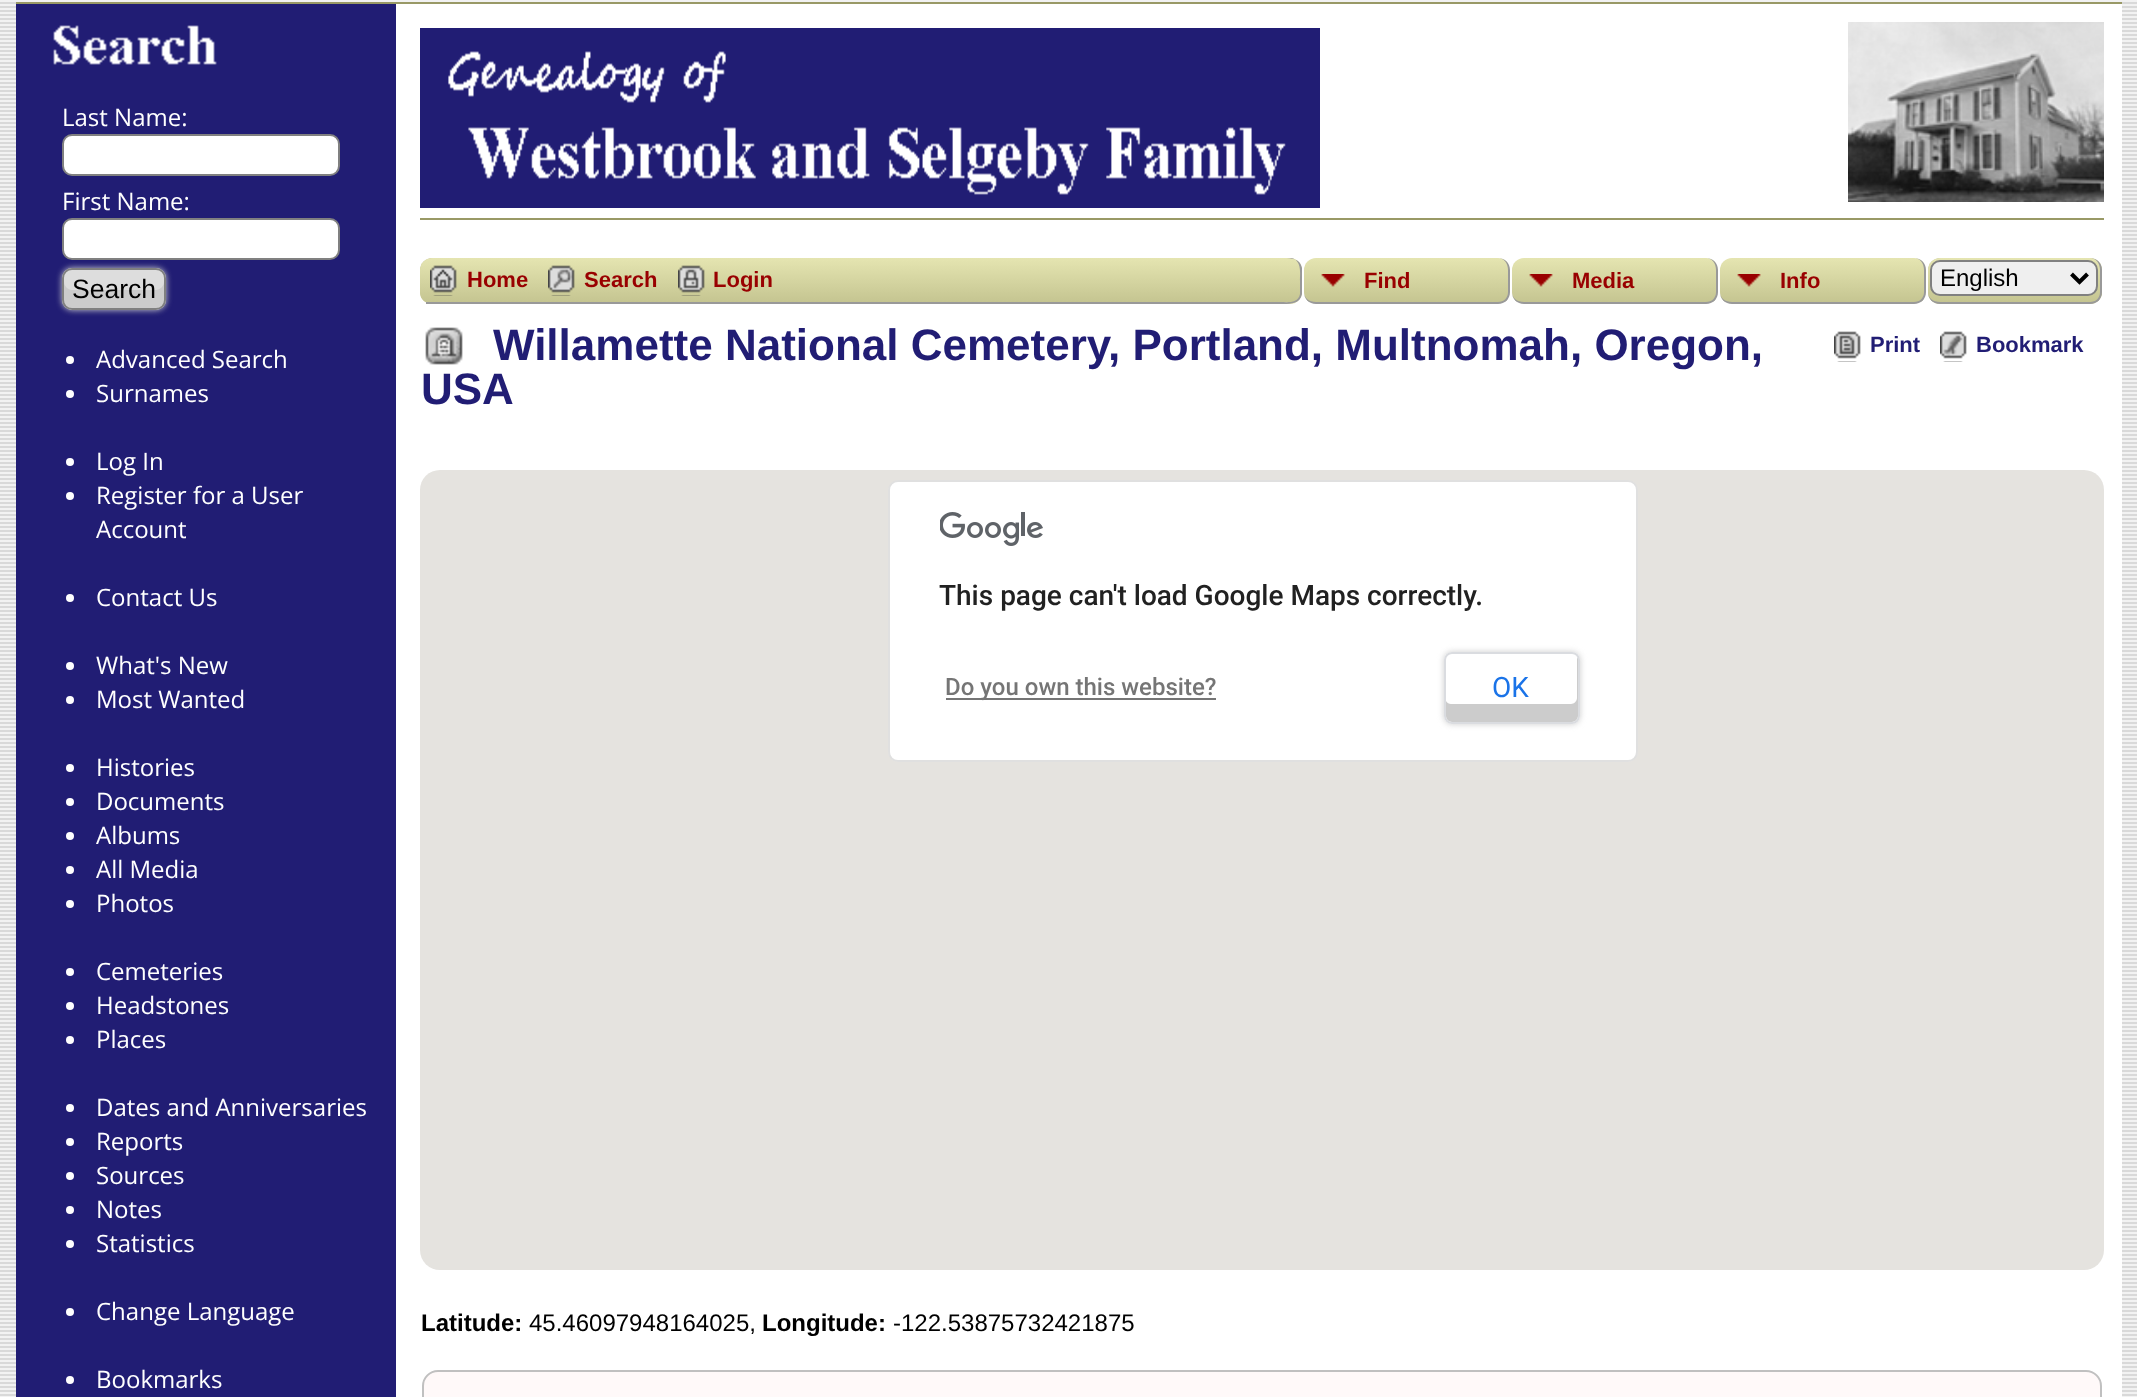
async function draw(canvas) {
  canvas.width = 2137
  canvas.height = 1397
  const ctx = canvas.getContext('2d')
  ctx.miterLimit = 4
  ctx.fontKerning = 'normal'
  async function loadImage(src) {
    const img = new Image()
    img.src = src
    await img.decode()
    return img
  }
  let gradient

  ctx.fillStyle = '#fff'
  ctx.fillRect(0, 0, 2137, 1397)
  ctx.drawImage(await loadImage('image0.png'), 0, 0, 2137, 1397)
  ctx.fillRect(396, 4, 1726, 1393)
  ctx.fillStyle = '#996'
  ctx.fillRect(16, 2, 2106, 2)
  ctx.fillStyle = '#211d74'
  ctx.fillRect(16, 4, 380, 1393)
  ctx.drawImage(await loadImage('image1.png'), 53, 25, 164, 40)
  ctx.font = '24px Open Sans'
  ctx.fillStyle = '#fff'
  ctx.fillText('Last Name:', 62, 126)
  ctx.beginPath()
  ctx.roundRect(63, 135, 276, 40, 9)
  ctx.fill()
  ctx.strokeStyle = '#808080'
  ctx.lineWidth = 2
  ctx.stroke()
  ctx.fillText('First Name:', 62, 210)
  ctx.beginPath()
  ctx.roundRect(63, 219, 276, 40, 9)
  ctx.fill()
  ctx.stroke()
  ctx.fillStyle = '#ccc'
  ctx.filter = 'blur(3px)'
  ctx.beginPath()
  ctx.roundRect(62, 268, 104, 42, 10)
  ctx.fill()
  ctx.filter = 'none'
  ctx.fillStyle = '#ddd'
  ctx.beginPath()
  ctx.roundRect(62, 268, 104, 42, 10)
  ctx.fill()
  ctx.fillStyle = '#ccc'
  ctx.beginPath()
  ctx.moveTo(64, 282)
  ctx.lineTo(64, 300)
  ctx.bezierCurveTo(64, 304, 68, 308, 72, 308)
  ctx.lineTo(156, 308)
  ctx.bezierCurveTo(160, 308, 164, 304, 164, 300)
  ctx.lineTo(164, 282)
  ctx.bezierCurveTo(164, 286, 160, 290, 156, 290)
  ctx.lineTo(72, 290)
  ctx.bezierCurveTo(68, 290, 64, 286, 64, 282)
  ctx.closePath()
  ctx.fill()
  ctx.beginPath()
  ctx.roundRect(63, 269, 102, 40, 9)
  ctx.stroke()
  ctx.font = '26.5px Liberation Sans'
  ctx.fillStyle = '#000'
  ctx.fillText('Search', 72, 298)
  ctx.fillStyle = '#fff'
  ctx.beginPath()
  ctx.arc(70, 360, 4, 0, 2 * Math.PI)
  ctx.fill()
  ctx.font = '24px Open Sans'
  ctx.fillText('Advanced Search', 96, 368)
  ctx.beginPath()
  ctx.arc(70, 394, 4, 0, 2 * Math.PI)
  ctx.fill()
  ctx.fillText('Surnames', 96, 402)
  ctx.beginPath()
  ctx.arc(70, 462, 4, 0, 2 * Math.PI)
  ctx.fill()
  ctx.fillText('Log In', 96, 470)
  ctx.beginPath()
  ctx.arc(70, 496, 4, 0, 2 * Math.PI)
  ctx.fill()
  ctx.fillText('Register for a User', 96, 504)
  ctx.fillText('Account', 96, 538)
  ctx.beginPath()
  ctx.arc(70, 598, 4, 0, 2 * Math.PI)
  ctx.fill()
  ctx.fillText('Contact Us', 96, 606)
  ctx.beginPath()
  ctx.arc(70, 666, 4, 0, 2 * Math.PI)
  ctx.fill()
  ctx.fillText('What\'s New', 96, 674)
  ctx.beginPath()
  ctx.arc(70, 700, 4, 0, 2 * Math.PI)
  ctx.fill()
  ctx.fillText('Most Wanted', 96, 708)
  ctx.beginPath()
  ctx.arc(70, 768, 4, 0, 2 * Math.PI)
  ctx.fill()
  ctx.fillText('Histories', 96, 776)
  ctx.beginPath()
  ctx.arc(70, 802, 4, 0, 2 * Math.PI)
  ctx.fill()
  ctx.fillText('Documents', 96, 810)
  ctx.beginPath()
  ctx.arc(70, 836, 4, 0, 2 * Math.PI)
  ctx.fill()
  ctx.fillText('Albums', 96, 844)
  ctx.beginPath()
  ctx.arc(70, 870, 4, 0, 2 * Math.PI)
  ctx.fill()
  ctx.fillText('All Media', 96, 878)
  ctx.beginPath()
  ctx.arc(70, 904, 4, 0, 2 * Math.PI)
  ctx.fill()
  ctx.fillText('Photos', 96, 912)
  ctx.beginPath()
  ctx.arc(70, 972, 4, 0, 2 * Math.PI)
  ctx.fill()
  ctx.fillText('Cemeteries', 96, 980)
  ctx.beginPath()
  ctx.arc(70, 1006, 4, 0, 2 * Math.PI)
  ctx.fill()
  ctx.fillText('Headstones', 96, 1014)
  ctx.beginPath()
  ctx.arc(70, 1040, 4, 0, 2 * Math.PI)
  ctx.fill()
  ctx.fillText('Places', 96, 1048)
  ctx.beginPath()
  ctx.arc(70, 1108, 4, 0, 2 * Math.PI)
  ctx.fill()
  ctx.fillText('Dates and Anniversaries', 96, 1116)
  ctx.beginPath()
  ctx.arc(70, 1142, 4, 0, 2 * Math.PI)
  ctx.fill()
  ctx.fillText('Reports', 96, 1150)
  ctx.beginPath()
  ctx.arc(70, 1176, 4, 0, 2 * Math.PI)
  ctx.fill()
  ctx.fillText('Sources', 96, 1184)
  ctx.beginPath()
  ctx.arc(70, 1210, 4, 0, 2 * Math.PI)
  ctx.fill()
  ctx.fillText('Notes', 96, 1218)
  ctx.beginPath()
  ctx.arc(70, 1244, 4, 0, 2 * Math.PI)
  ctx.fill()
  ctx.fillText('Statistics', 96, 1252)
  ctx.beginPath()
  ctx.arc(70, 1312, 4, 0, 2 * Math.PI)
  ctx.fill()
  ctx.fillText('Change Language', 96, 1320)
  ctx.beginPath()
  ctx.arc(70, 1380, 4, 0, 2 * Math.PI)
  ctx.fill()
  ctx.fillText('Bookmarks', 96, 1388)
  ctx.drawImage(await loadImage('image2.png'), 420, 28, 900, 180)
  ctx.drawImage(await loadImage('image3.png'), 1848, 22, 256, 180)
  ctx.fillStyle = '#996'
  ctx.fillRect(420, 218, 1684, 2)
  ctx.fillStyle = '#cc9'
  ctx.beginPath()
  ctx.roundRect(420, 258, 1684, 46, 12)
  ctx.fill()
  ctx.save()
  ctx.beginPath()
  ctx.roundRect(420, 258, 1684, 46, 12)
  ctx.clip()
  gradient = ctx.createLinearGradient(1262, 258, 1262, 302)
  gradient.addColorStop(0, '#e5e5b1')
  gradient.addColorStop(1, '#c5c591')
  ctx.fillStyle = gradient
  ctx.beginPath()
  ctx.roundRect(420, 258, 1684, 44, [12, 12, 0, 0])
  ctx.fill()
  ctx.restore()
  ctx.fillStyle = '#999'
  ctx.fillRect(426, 302, 854, 2)
  ctx.drawImage(await loadImage('image4.png'), 430, 265, 27, 31)
  ctx.font = 'bold 22px Liberation Sans'
  ctx.fillStyle = '#900'
  ctx.fillText('Home', 467, 287)
  ctx.drawImage(await loadImage('image5.png'), 548, 265, 27, 31)
  ctx.fillText('Search', 584, 287)
  ctx.drawImage(await loadImage('image6.png'), 678, 265, 27, 31)
  ctx.fillText('Login', 713, 287)
  ctx.fillStyle = '#fff'
  ctx.fillRect(1290, 258, 814, 46)
  ctx.save()
  ctx.beginPath()
  ctx.roundRect(1280, 258, 22, 46, [0, 12, 12, 0])
  ctx.clip()
  gradient = ctx.createLinearGradient(1290, 258, 1290, 302)
  gradient.addColorStop(0, '#e5e5b1')
  gradient.addColorStop(1, '#c5c591')
  ctx.fillStyle = gradient
  ctx.fillRect(1280, 258, 22, 44)
  gradient = ctx.createLinearGradient(1290, 302, 1290, 346)
  gradient.addColorStop(0, '#e5e5b1')
  gradient.addColorStop(1, '#c5c591')
  ctx.fillStyle = gradient
  ctx.fillRect(1280, 302, 22, 2)
  ctx.restore()
  ctx.fillStyle = '#999'
  ctx.beginPath()
  ctx.moveTo(1280, 258)
  ctx.bezierCurveTo(1288, 258, 1300, 257, 1302, 268)
  ctx.lineTo(1302, 294)
  ctx.bezierCurveTo(1300, 305, 1288, 304, 1280, 304)
  ctx.closePath()
  ctx.moveTo(1280, 258)
  ctx.lineTo(1292, 258)
  ctx.bezierCurveTo(1302, 261, 1300, 274, 1300, 281)
  ctx.lineTo(1300, 294)
  ctx.bezierCurveTo(1298, 304, 1287, 302, 1280, 302)
  ctx.closePath()
  ctx.fill('evenodd')
  ctx.drawImage(await loadImage('image7.png'), 1304, 258, 204, 44)
  ctx.beginPath()
  ctx.moveTo(1316, 258)
  ctx.lineTo(1498, 258)
  ctx.bezierCurveTo(1505, 258, 1510, 263, 1510, 270)
  ctx.lineTo(1510, 292)
  ctx.bezierCurveTo(1510, 299, 1505, 304, 1498, 304)
  ctx.lineTo(1316, 304)
  ctx.bezierCurveTo(1309, 304, 1304, 299, 1304, 292)
  ctx.lineTo(1304, 270)
  ctx.bezierCurveTo(1304, 263, 1309, 258, 1316, 258)
  ctx.closePath()
  ctx.moveTo(1316, 258)
  ctx.lineTo(1498, 258)
  ctx.bezierCurveTo(1504, 258, 1508, 263, 1508, 270)
  ctx.lineTo(1508, 292)
  ctx.bezierCurveTo(1508, 298, 1504, 302, 1498, 302)
  ctx.lineTo(1316, 302)
  ctx.bezierCurveTo(1309, 302, 1304, 298, 1304, 292)
  ctx.lineTo(1304, 270)
  ctx.bezierCurveTo(1304, 263, 1309, 258, 1316, 258)
  ctx.closePath()
  ctx.fill('evenodd')
  ctx.fillStyle = '#900'
  ctx.fillText('Find', 1364, 288)
  ctx.drawImage(await loadImage('image8.png'), 1512, 258, 204, 44)
  ctx.fillStyle = '#999'
  ctx.beginPath()
  ctx.moveTo(1524, 258)
  ctx.lineTo(1706, 258)
  ctx.bezierCurveTo(1713, 258, 1718, 263, 1718, 270)
  ctx.lineTo(1718, 292)
  ctx.bezierCurveTo(1718, 299, 1713, 304, 1706, 304)
  ctx.lineTo(1524, 304)
  ctx.bezierCurveTo(1517, 304, 1512, 299, 1512, 292)
  ctx.lineTo(1512, 270)
  ctx.bezierCurveTo(1512, 263, 1517, 258, 1524, 258)
  ctx.closePath()
  ctx.moveTo(1524, 258)
  ctx.lineTo(1706, 258)
  ctx.bezierCurveTo(1712, 258, 1716, 263, 1716, 270)
  ctx.lineTo(1716, 292)
  ctx.bezierCurveTo(1716, 298, 1712, 302, 1706, 302)
  ctx.lineTo(1524, 302)
  ctx.bezierCurveTo(1517, 302, 1512, 298, 1512, 292)
  ctx.lineTo(1512, 270)
  ctx.bezierCurveTo(1512, 263, 1517, 258, 1524, 258)
  ctx.closePath()
  ctx.fill('evenodd')
  ctx.fillStyle = '#900'
  ctx.fillText('Media', 1572, 288)
  ctx.drawImage(await loadImage('image9.png'), 1720, 258, 204, 44)
  ctx.fillStyle = '#999'
  ctx.beginPath()
  ctx.moveTo(1732, 258)
  ctx.lineTo(1914, 258)
  ctx.bezierCurveTo(1921, 258, 1926, 263, 1926, 270)
  ctx.lineTo(1926, 292)
  ctx.bezierCurveTo(1926, 299, 1921, 304, 1914, 304)
  ctx.lineTo(1732, 304)
  ctx.bezierCurveTo(1725, 304, 1720, 299, 1720, 292)
  ctx.lineTo(1720, 270)
  ctx.bezierCurveTo(1720, 263, 1725, 258, 1732, 258)
  ctx.closePath()
  ctx.moveTo(1732, 258)
  ctx.lineTo(1914, 258)
  ctx.bezierCurveTo(1920, 258, 1924, 263, 1924, 270)
  ctx.lineTo(1924, 292)
  ctx.bezierCurveTo(1924, 298, 1920, 302, 1914, 302)
  ctx.lineTo(1732, 302)
  ctx.bezierCurveTo(1725, 302, 1720, 298, 1720, 292)
  ctx.lineTo(1720, 270)
  ctx.bezierCurveTo(1720, 263, 1725, 258, 1732, 258)
  ctx.closePath()
  ctx.fill('evenodd')
  ctx.fillStyle = '#900'
  ctx.fillText('Info', 1780, 288)
  ctx.fillStyle = '#cc9'
  ctx.beginPath()
  ctx.roundRect(1928, 258, 174, 46, 12)
  ctx.fill()
  ctx.save()
  ctx.beginPath()
  ctx.roundRect(1928, 258, 174, 46, 12)
  ctx.clip()
  gradient = ctx.createLinearGradient(2014, 258, 2014, 302)
  gradient.addColorStop(0, '#e5e5b1')
  gradient.addColorStop(1, '#c5c591')
  ctx.fillStyle = gradient
  ctx.beginPath()
  ctx.roundRect(1928, 258, 174, 44, [12, 12, 0, 0])
  ctx.fill()
  ctx.restore()
  ctx.fillStyle = '#999'
  ctx.beginPath()
  ctx.moveTo(1940, 258)
  ctx.lineTo(2090, 258)
  ctx.bezierCurveTo(2097, 258, 2102, 263, 2102, 270)
  ctx.lineTo(2102, 292)
  ctx.bezierCurveTo(2102, 299, 2097, 304, 2090, 304)
  ctx.lineTo(1940, 304)
  ctx.bezierCurveTo(1933, 304, 1928, 299, 1928, 292)
  ctx.lineTo(1928, 270)
  ctx.bezierCurveTo(1928, 263, 1933, 258, 1940, 258)
  ctx.closePath()
  ctx.moveTo(1940, 258)
  ctx.lineTo(2090, 258)
  ctx.bezierCurveTo(2096, 258, 2100, 263, 2100, 270)
  ctx.lineTo(2100, 292)
  ctx.bezierCurveTo(2100, 298, 2096, 302, 2090, 302)
  ctx.lineTo(1940, 302)
  ctx.bezierCurveTo(1933, 302, 1928, 298, 1928, 292)
  ctx.lineTo(1928, 270)
  ctx.bezierCurveTo(1928, 263, 1933, 258, 1940, 258)
  ctx.closePath()
  ctx.fill('evenodd')
  ctx.fillStyle = '#efefef'
  ctx.beginPath()
  ctx.roundRect(1931, 261, 166, 34, 9)
  ctx.fill()
  ctx.stroke()
  ctx.beginPath()
  ctx.moveTo(2071.5, 274)
  ctx.lineTo(2079.5, 282)
  ctx.lineTo(2087.5, 274)
  ctx.strokeStyle = '#000'
  ctx.lineWidth = 4
  ctx.stroke()
  ctx.font = '24px Liberation Sans'
  ctx.fillStyle = '#000'
  ctx.fillText('English', 1940, 286)
  ctx.drawImage(await loadImage('image10.png'), 425, 327, 38, 38)
  ctx.font = 'bold 44px Liberation Sans'
  ctx.fillStyle = '#211d74'
  ctx.fillText('Willamette National Cemetery, Portland, Multnomah, Oregon,', 493, 360)
  ctx.fillText('USA', 421, 404)
  ctx.drawImage(await loadImage('image11.png'), 1834, 331, 27, 31)
  ctx.font = 'bold 22px Liberation Sans'
  ctx.fillText('Print', 1870, 352)
  ctx.drawImage(await loadImage('image12.png'), 1940, 331, 27, 31)
  ctx.fillText('Bookmark', 1976, 352)
  ctx.fillStyle = '#e5e3df'
  ctx.beginPath()
  ctx.roundRect(420, 470, 1684, 800, 20)
  ctx.fill()
  ctx.fillStyle = '#fff'
  ctx.beginPath()
  ctx.roundRect(888, 480, 750, 282, 10)
  ctx.fill()
  ctx.beginPath()
  ctx.roundRect(889, 481, 748, 280, 9)
  ctx.strokeStyle = '#0000001f'
  ctx.lineWidth = 2
  ctx.stroke()
  ctx.drawImage(await loadImage('image13.png'), 940, 512, 103, 34)
  ctx.font = '500 28px Roboto'
  ctx.fillStyle = '#212121'
  ctx.fillText('This page can\'t load Google Maps correctly.', 939, 605)
  ctx.fillStyle = '#757575'
  ctx.fillRect(946, 698, 270, 2)
  ctx.font = '500 24px Roboto'
  ctx.fillText('Do you own this website?', 945, 695)
  ctx.fillStyle = '#ccc'
  ctx.filter = 'blur(3px)'
  ctx.beginPath()
  ctx.roundRect(1444, 652, 136, 72, 8)
  ctx.fill()
  ctx.filter = 'none'
  ctx.fillStyle = '#fff'
  ctx.beginPath()
  ctx.roundRect(1444, 652, 136, 72, 8)
  ctx.fill()
  ctx.fillStyle = '#ccc'
  ctx.beginPath()
  ctx.moveTo(1577, 657)
  ctx.bezierCurveTo(1578, 658, 1578, 659, 1578, 660)
  ctx.lineTo(1578, 716)
  ctx.bezierCurveTo(1578, 719, 1575, 722, 1572, 722)
  ctx.lineTo(1452, 722)
  ctx.bezierCurveTo(1449, 722, 1446, 719, 1446, 716)
  ctx.lineTo(1446, 701)
  ctx.bezierCurveTo(1447, 703, 1449, 704, 1451, 704)
  ctx.lineTo(1571, 704)
  ctx.bezierCurveTo(1574, 704, 1577, 701, 1577, 698)
  ctx.closePath()
  ctx.fill()
  ctx.beginPath()
  ctx.roundRect(1445, 653, 134, 70, 7)
  ctx.strokeStyle = '#dadce0'
  ctx.stroke()
  ctx.font = '28px Roboto'
  ctx.fillStyle = '#1a73e8'
  ctx.fillText('OK', 1492, 697)
  ctx.font = 'bold 24px Liberation Sans'
  ctx.fillStyle = '#000'
  ctx.fillText('Latitude:', 421, 1331)
  ctx.font = '24px Liberation Sans'
  ctx.fillText('45.46097948164025,', 529, 1331)
  ctx.font = 'bold 24px Liberation Sans'
  ctx.fillText('Longitude:', 762, 1331)
  ctx.font = '24px Liberation Sans'
  ctx.fillText('-122.53875732421875', 893, 1331)
  ctx.fillStyle = '#fff9f9'
  ctx.beginPath()
  ctx.roundRect(423, 1371, 1678, 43, 15)
  ctx.fill()
  ctx.strokeStyle = '#c0c0c0'
  ctx.stroke()
}

draw(document.querySelector('canvas'))
